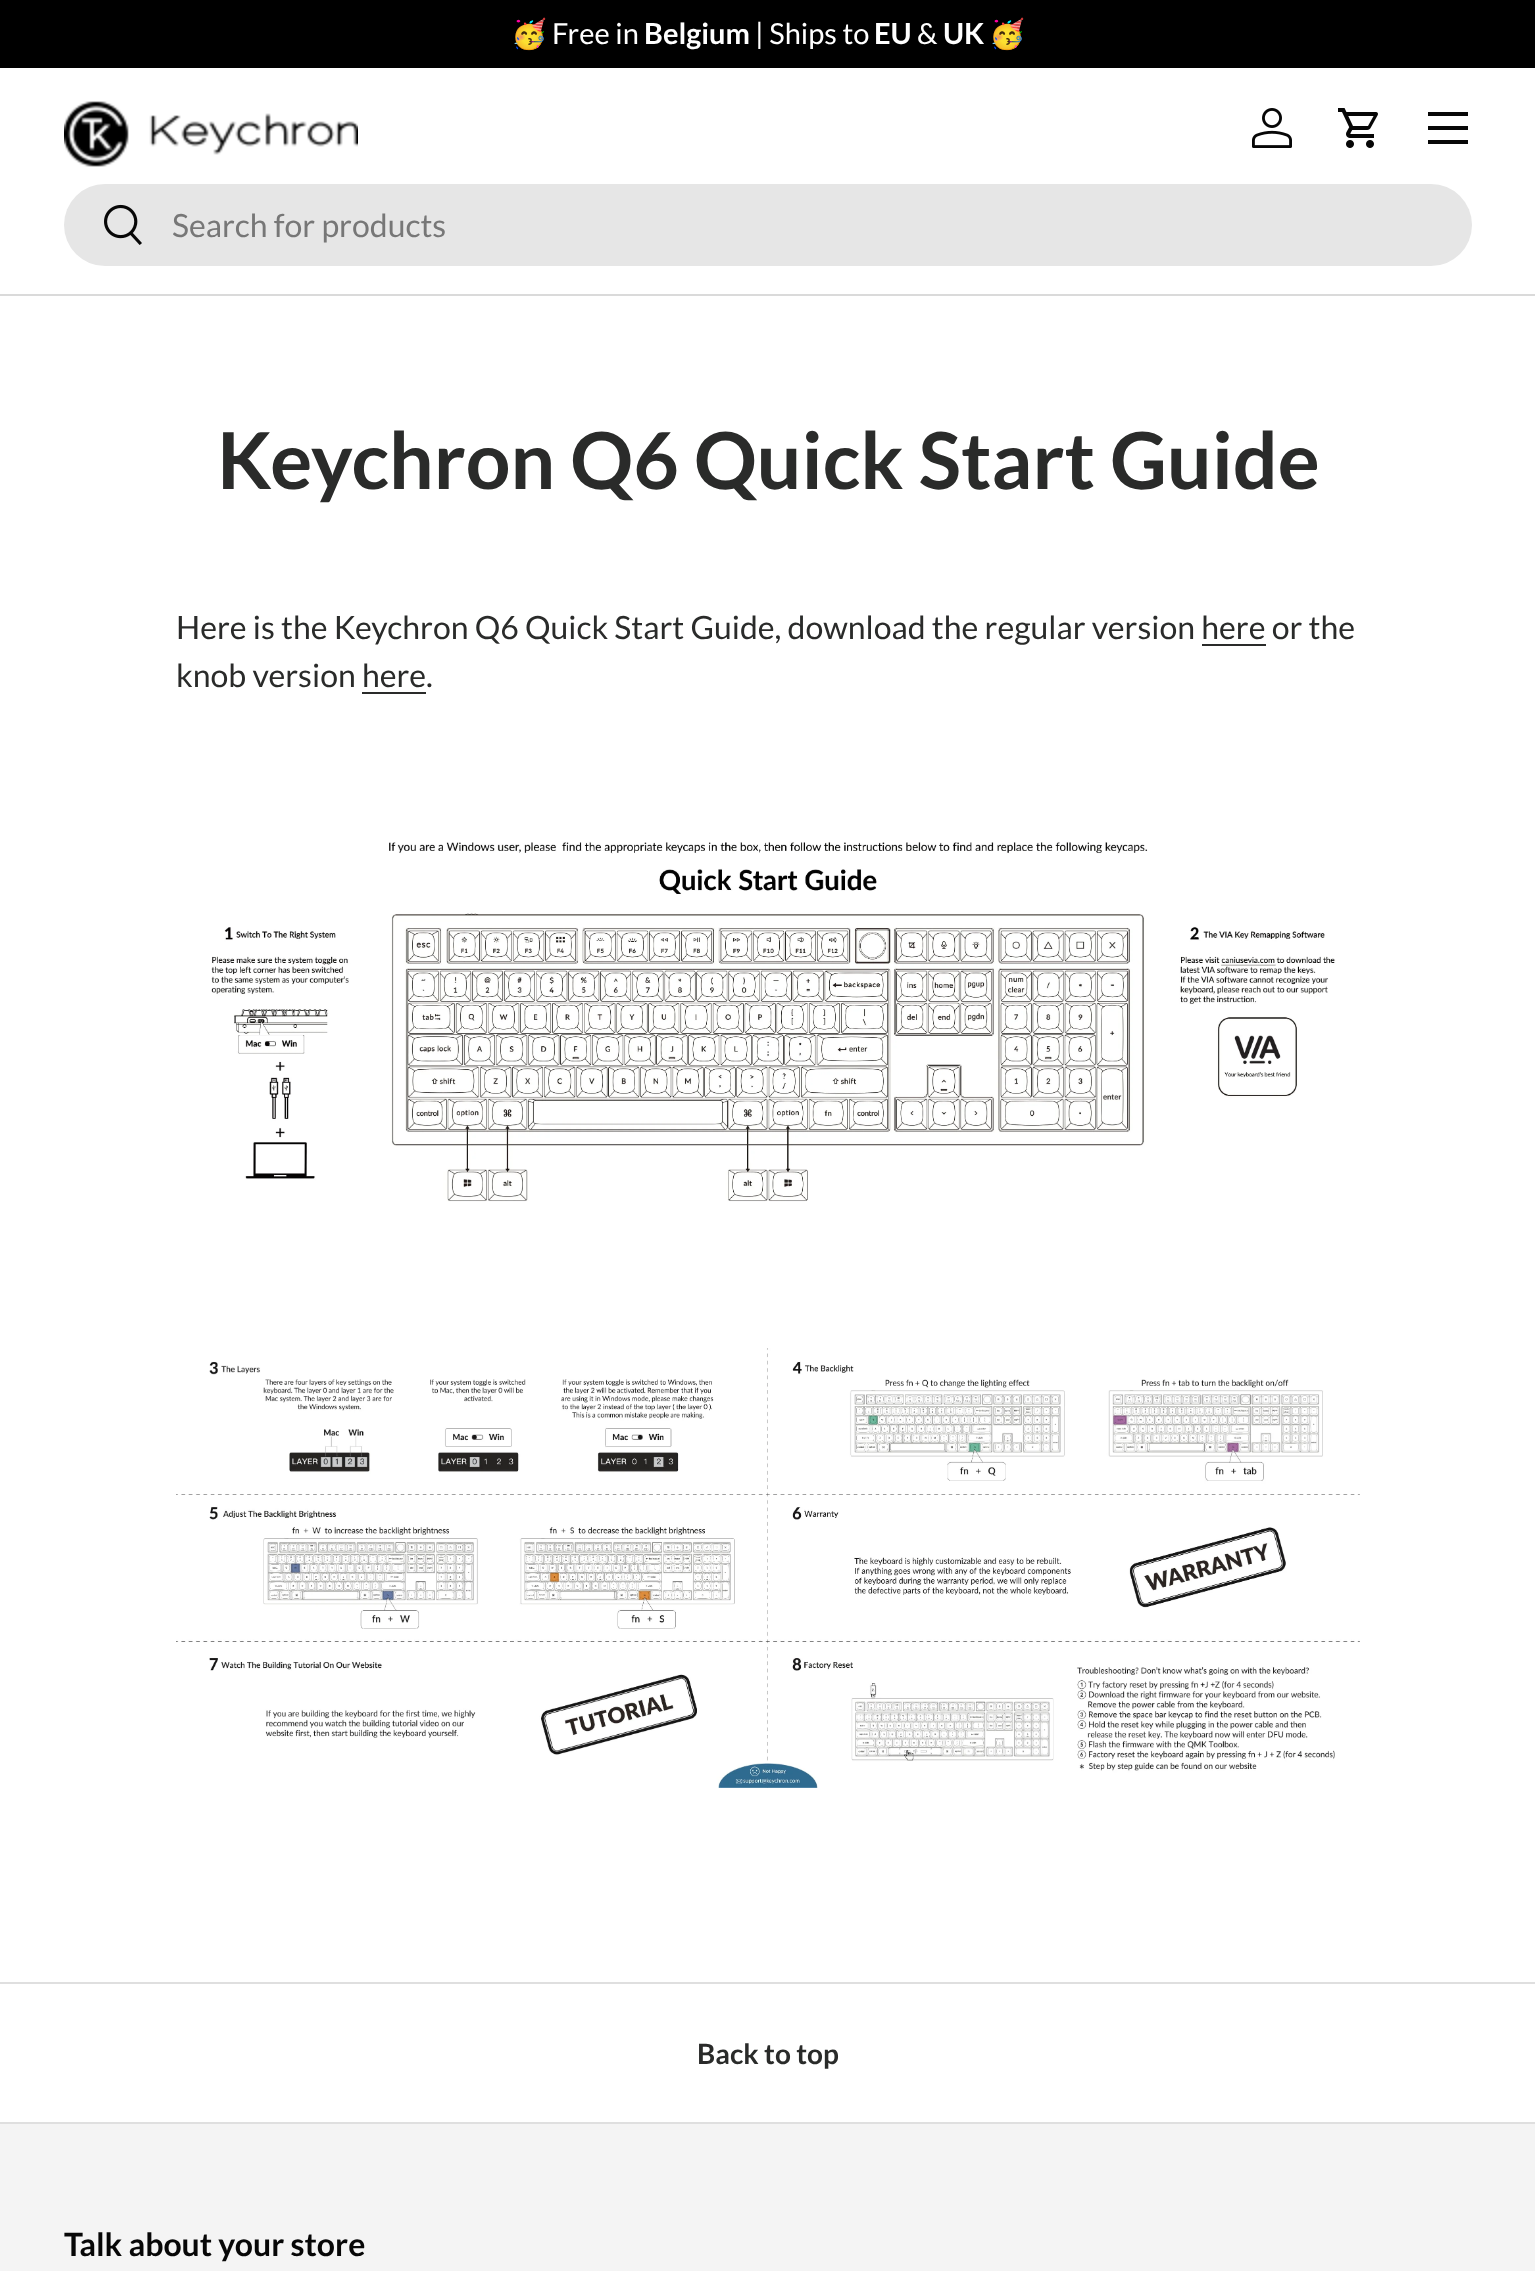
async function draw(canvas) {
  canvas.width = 1535
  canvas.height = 2271
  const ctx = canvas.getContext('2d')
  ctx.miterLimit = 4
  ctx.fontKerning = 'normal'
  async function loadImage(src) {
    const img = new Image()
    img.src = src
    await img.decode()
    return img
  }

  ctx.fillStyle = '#fff'
  ctx.fillRect(0, 0, 1535, 2271)
  ctx.fillStyle = '#000'
  ctx.fillRect(0, 0, 1535, 68)
  ctx.font = '29px Noto Color Emoji'
  ctx.fillStyle = '#fff'
  ctx.fillText('🥳', 511, 44)
  ctx.font = '29px Lato'
  ctx.fillText('Free in', 552, 44)
  ctx.font = 'bold 29px Lato'
  ctx.fillText('Belgium', 644, 44)
  ctx.font = '29px Lato'
  ctx.fillText('| Ships to', 755, 44)
  ctx.font = 'bold 29px Lato'
  ctx.fillText('EU', 874, 44)
  ctx.font = '29px Lato'
  ctx.fillText('&', 917, 44)
  ctx.font = 'bold 29px Lato'
  ctx.fillText('UK', 943, 44)
  ctx.font = '29px Noto Color Emoji'
  ctx.fillText('🥳', 989, 44)
  ctx.fillStyle = '#dadada'
  ctx.fillRect(0, 294, 1535, 2)
  ctx.drawImage(await loadImage('image0.png'), 64, 101, 294, 66)
  ctx.drawImage(await loadImage('image1.png'), 1252, 108, 40, 40)
  ctx.drawImage(await loadImage('image2.png'), 1338, 108, 40, 40)
  ctx.fillStyle = '#070707'
  ctx.fillRect(1428, 112, 40, 4)
  ctx.fillRect(1428, 140, 40, 4)
  ctx.fillRect(1428, 126, 40, 4)
  ctx.fillStyle = '#e6e6e6'
  ctx.beginPath()
  ctx.roundRect(64, 184, 1408, 82, 41)
  ctx.fill()
  ctx.drawImage(await loadImage('image3.png'), 104, 204, 38, 41)
  ctx.font = '32px Lato'
  ctx.fillStyle = '#777'
  ctx.fillText('Search for products', 172, 237)
  ctx.font = 'bold 78.6px Lato'
  ctx.fillStyle = '#2a2b2a'
  ctx.fillText('Keychron Q6 Quick Start Guide', 217, 489)
  ctx.font = '32px Lato'
  ctx.fillText('Here is the Keychron Q6 Quick Start Guide, download the regular version here or the', 176, 639)
  ctx.fillRect(1202, 644, 64, 2)
  ctx.fillText('knob version here.', 176, 687)
  ctx.fillRect(362, 692, 64, 2)
  ctx.drawImage(await loadImage('image4.png'), 211, 841, 1125, 361)
  ctx.drawImage(await loadImage('image5.png'), 176, 1348, 1184, 440)
  ctx.fillStyle = '#dfdfdf'
  ctx.fillRect(0, 1982, 1535, 2)
  ctx.fillRect(0, 2122, 1535, 2)
  ctx.font = 'bold 28px Lato'
  ctx.fillStyle = '#2a2b2a'
  ctx.fillText('Back to top', 697, 2064)
  ctx.fillStyle = '#f4f4f4'
  ctx.fillRect(0, 2124, 1535, 147)
  ctx.font = 'bold 32px Lato'
  ctx.fillStyle = '#070707'
  ctx.fillText('Talk about your store', 64, 2256)
}

draw(document.querySelector('canvas'))
